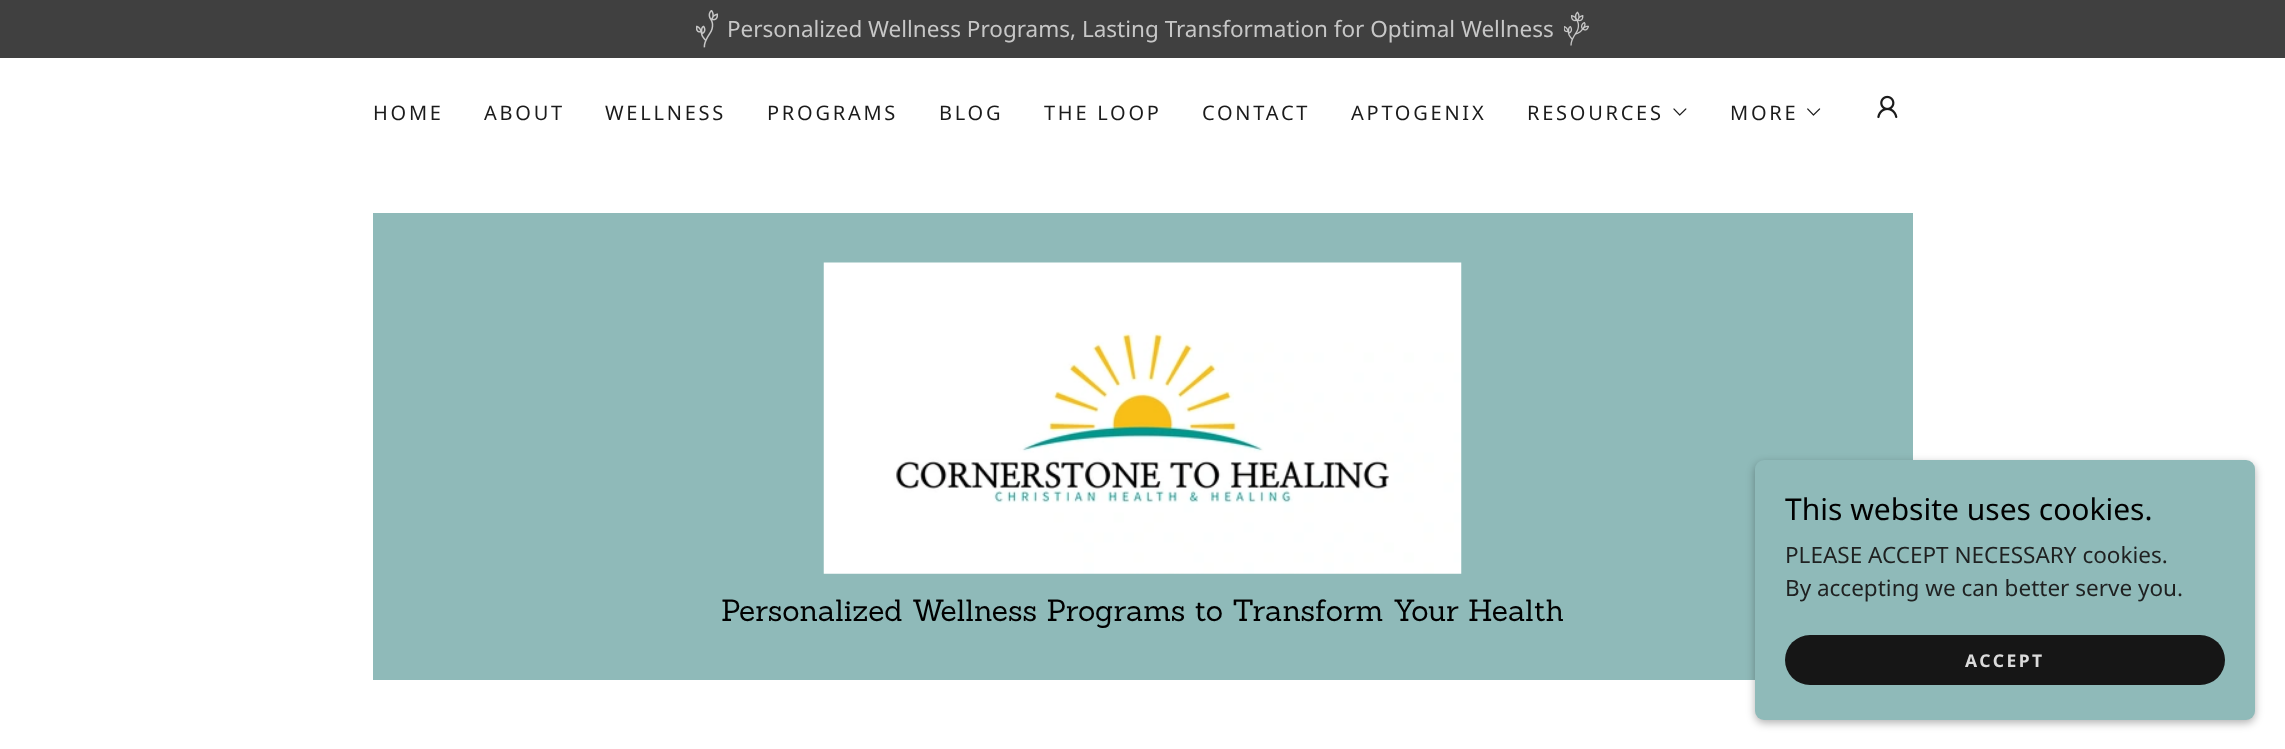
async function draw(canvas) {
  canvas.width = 2285
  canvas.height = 749
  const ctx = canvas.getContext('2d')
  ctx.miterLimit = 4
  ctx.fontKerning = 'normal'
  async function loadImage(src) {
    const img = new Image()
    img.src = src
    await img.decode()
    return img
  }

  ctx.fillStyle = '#fff'
  ctx.fillRect(0, 0, 2285, 749)
  ctx.fillStyle = '#404040'
  ctx.fillRect(0, 0, 2285, 58)
  ctx.drawImage(await loadImage('image0.png'), 696, 10, 22, 38)
  ctx.font = '22.5px Noto Sans'
  ctx.fillStyle = '#c7c7c7'
  ctx.fillText('Personalized Wellness Programs, Lasting Transformation for Optimal Wellness', 727, 37)
  ctx.drawImage(await loadImage('image1.png'), 1564, 11, 25, 35)
  ctx.letterSpacing = '2.75px'
  ctx.font = '20px Noto Sans'
  ctx.fillStyle = '#1b1b1b'
  ctx.fillText('HOME', 373, 120)
  ctx.fillText('ABOUT', 484, 120)
  ctx.fillText('WELLNESS', 605, 120)
  ctx.fillText('PROGRAMS', 767, 120)
  ctx.fillText('BLOG', 939, 120)
  ctx.fillText('THE LOOP', 1044, 120)
  ctx.fillText('CONTACT', 1202, 120)
  ctx.fillText('APTOGENIX', 1351, 120)
  ctx.fillText('RESOURCES', 1527, 120)
  ctx.drawImage(await loadImage('image2.png'), 1673, 108, 14, 8)
  ctx.fillText('MORE', 1730, 120)
  ctx.drawImage(await loadImage('image3.png'), 1807, 108, 14, 8)
  ctx.drawImage(await loadImage('image4.png'), 1877, 95, 21, 24)
  ctx.fillStyle = '#8fbab9'
  ctx.fillRect(373, 213, 1540, 467)
  ctx.drawImage(await loadImage('image5.png'), 823, 262, 639, 312)
  ctx.letterSpacing = '0px'
  ctx.font = '30px Sanchez'
  ctx.fillStyle = '#000'
  ctx.fillText('Personalized Wellness Programs to Transform Your Health', 721, 621)
  ctx.fillStyle = '#0000004d'
  ctx.filter = 'blur(4px)'
  ctx.beginPath()
  ctx.roundRect(1755, 463, 500, 260, 9)
  ctx.fill()
  ctx.filter = 'none'
  ctx.fillStyle = '#8fbab9'
  ctx.beginPath()
  ctx.roundRect(1755, 460, 500, 260, 9)
  ctx.fill()
  ctx.font = '30px Noto Sans'
  ctx.fillStyle = '#000'
  ctx.fillText('This website uses cookies.', 1785, 520)
  ctx.font = '22.5px Noto Sans'
  ctx.fillStyle = '#1f2121'
  ctx.fillText('PLEASE ACCEPT NECESSARY cookies.', 1785, 563)
  ctx.fillText('By accepting we can better serve you.', 1785, 596)
  ctx.fillStyle = '#161616'
  ctx.beginPath()
  ctx.roundRect(1785, 635, 440, 50, 25)
  ctx.fill()
  ctx.letterSpacing = '2.5px'
  ctx.font = 'bold 17.5px Noto Sans'
  ctx.fillStyle = '#dbdbdb'
  ctx.fillText('ACCEPT', 1965, 667)
}

draw(document.querySelector('canvas'))
